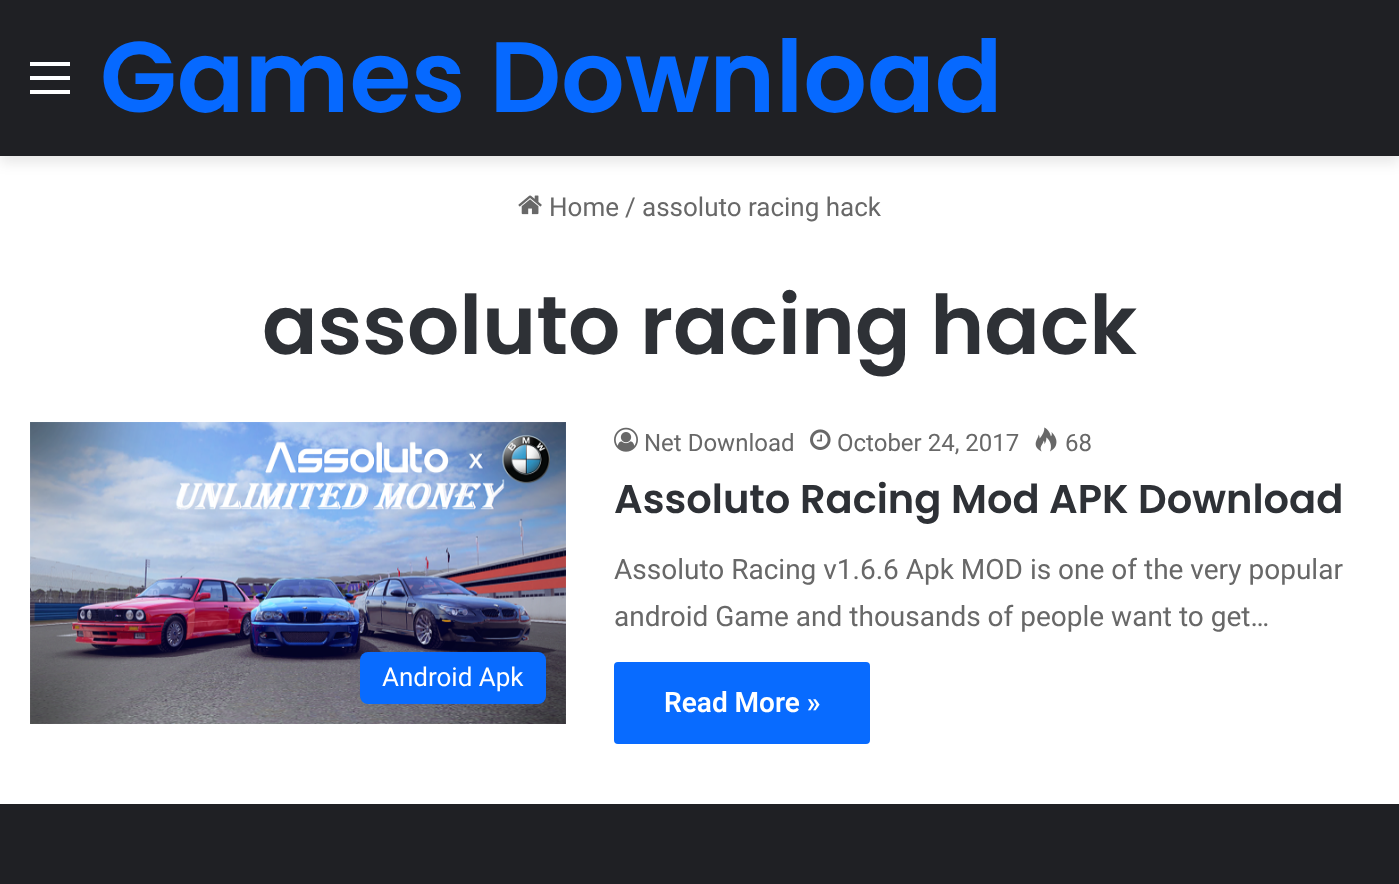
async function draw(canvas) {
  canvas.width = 1399
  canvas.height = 884
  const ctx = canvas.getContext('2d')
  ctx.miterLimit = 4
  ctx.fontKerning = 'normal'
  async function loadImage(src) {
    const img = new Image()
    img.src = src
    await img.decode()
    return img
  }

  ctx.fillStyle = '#fff'
  ctx.fillRect(0, 0, 1399, 884)
  ctx.fillStyle = '#0000001a'
  ctx.filter = 'blur(7px)'
  ctx.beginPath()
  ctx.rect(0, 6, 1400, 156)
  ctx.fill()
  ctx.filter = 'none'
  ctx.fillStyle = '#1f2024'
  ctx.fillRect(0, 0, 1399, 156)
  ctx.fillStyle = '#fff'
  ctx.fillRect(30, 76, 40, 4)
  ctx.fillRect(30, 62, 40, 4)
  ctx.fillRect(30, 90, 40, 4)
  ctx.font = '600 100px Poppins'
  ctx.fillStyle = '#0669ff'
  ctx.fillText('Games Download', 100, 112)
  ctx.drawImage(await loadImage('image0.png'), 518, 195, 24, 20)
  ctx.font = '26px Roboto'
  ctx.fillStyle = '#686868'
  ctx.fillText('Home', 549, 216)
  ctx.fillText('/', 625, 216)
  ctx.fillText('assoluto racing hack', 642, 216)
  ctx.font = '600 82px Poppins'
  ctx.fillStyle = '#2e3136'
  ctx.fillText('assoluto racing hack', 262, 354)
  ctx.drawImage(await loadImage('image1.png'), 30, 422, 536, 302)
  ctx.fillStyle = '#086bff'
  ctx.beginPath()
  ctx.roundRect(360, 652, 186, 52, 8)
  ctx.fill()
  ctx.font = '26px Roboto'
  ctx.fillStyle = '#fff'
  ctx.fillText('Android Apk', 382, 686)
  ctx.drawImage(await loadImage('image2.png'), 614, 427, 24, 25)
  ctx.font = '24px Roboto'
  ctx.fillStyle = '#686868'
  ctx.fillText('Net Download', 644, 451)
  ctx.drawImage(await loadImage('image3.png'), 810, 429, 21, 21)
  ctx.fillText('October 24, 2017', 837, 451)
  ctx.drawImage(await loadImage('image4.png'), 1035, 427, 22, 25)
  ctx.fillText('68', 1065, 451)
  ctx.font = '600 40px Poppins'
  ctx.fillStyle = '#2e3136'
  ctx.fillText('Assoluto Racing Mod APK Download', 614, 513)
  ctx.font = '28px Roboto'
  ctx.fillStyle = '#686868'
  ctx.fillText('Assoluto Racing v1.6.6 Apk MOD is one of the very popular', 614, 579)
  ctx.fillText('android Game and thousands of people want to get…', 614, 626)
  ctx.fillStyle = '#086bff'
  ctx.beginPath()
  ctx.roundRect(614, 662, 256, 82, 4)
  ctx.fill()
  ctx.font = '600 28px Roboto'
  ctx.fillStyle = '#fff'
  ctx.fillText('Read More »', 664, 712)
  ctx.fillStyle = '#1f2024'
  ctx.fillRect(0, 804, 1399, 80)
}

draw(document.querySelector('canvas'))
